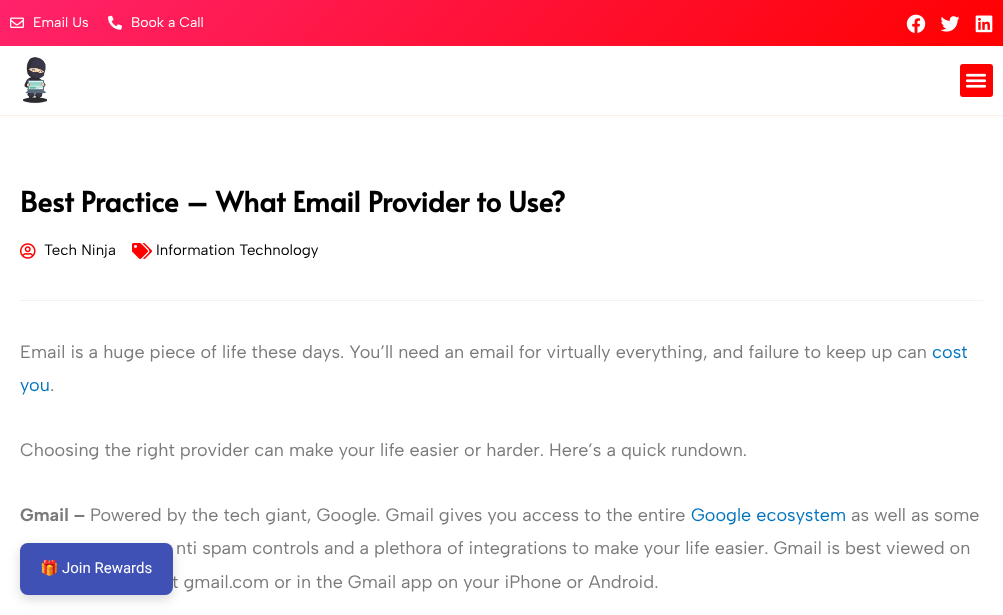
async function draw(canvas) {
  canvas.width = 1003
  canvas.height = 615
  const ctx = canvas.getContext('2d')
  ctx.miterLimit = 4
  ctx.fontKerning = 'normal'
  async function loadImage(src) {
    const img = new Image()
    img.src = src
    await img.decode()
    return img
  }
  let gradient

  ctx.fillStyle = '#fff'
  ctx.fillRect(0, 0, 1003, 615)
  gradient = ctx.createLinearGradient(239, -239, 764, 285)
  gradient.addColorStop(0, '#ff236c')
  gradient.addColorStop(1, '#f00')
  ctx.fillStyle = gradient
  ctx.fillRect(0, 0, 1003, 46)
  ctx.drawImage(await loadImage('image0.png'), 10, 17, 14, 11)
  ctx.font = '14px Albert Sans'
  ctx.fillStyle = '#fff'
  ctx.fillText('Email Us', 33, 27)
  ctx.drawImage(await loadImage('image1.png'), 108, 15, 14, 15)
  ctx.fillText('Book a Call', 131, 27)
  ctx.drawImage(await loadImage('image2.png'), 906, 14, 20, 19)
  ctx.drawImage(await loadImage('image3.png'), 940, 16, 20, 16)
  ctx.drawImage(await loadImage('image4.png'), 975, 15, 18, 18)
  ctx.fillStyle = '#ffede9'
  ctx.fillRect(0, 115, 1003, 1)
  ctx.drawImage(await loadImage('image5.png'), 23, 57, 25, 47)
  ctx.fillStyle = '#f00'
  ctx.beginPath()
  ctx.roundRect(960, 64, 33, 33, 3)
  ctx.fill()
  ctx.drawImage(await loadImage('image6.png'), 965, 73, 22, 15)
  ctx.font = 'bold 28px Alata'
  ctx.fillStyle = '#000'
  ctx.fillText('Best Practice – What Email Provider to Use?', 20, 212)
  ctx.drawImage(await loadImage('image7.png'), 20, 243, 16, 16)
  ctx.font = '15px Albert Sans'
  ctx.fillText('Tech Ninja', 44, 255)
  ctx.drawImage(await loadImage('image8.png'), 132, 243, 20, 16)
  ctx.fillText('Information Technology', 156, 255)
  ctx.fillStyle = '#f2f2f2'
  ctx.fillRect(20, 300, 963, 1)
  ctx.font = '18px Albert Sans'
  ctx.fillStyle = '#7a7a7a'
  ctx.fillText('Email is a huge piece of life these days. You’ll need an email for virtually everything, and failure to keep up can', 20, 358)
  ctx.fillStyle = '#0274be'
  ctx.fillText('cost', 932, 358)
  ctx.fillText('you', 20, 391)
  ctx.fillStyle = '#7a7a7a'
  ctx.fillText('.', 50, 391)
  ctx.fillText('Choosing the right provider can make your life easier or harder. Here’s a quick rundown.', 20, 456)
  ctx.font = 'bold 18px Albert Sans'
  ctx.fillText('Gmail –', 20, 521)
  ctx.font = '18px Albert Sans'
  ctx.fillText('Powered by the tech giant, Google. Gmail gives you access to the entire', 90, 521)
  ctx.fillStyle = '#0274be'
  ctx.fillText('Google ecosystem', 691, 521)
  ctx.fillStyle = '#7a7a7a'
  ctx.fillText('as well as some', 851, 521)
  ctx.fillText('nti spam controls and a plethora of integrations to make your life easier. Gmail is best viewed on', 176, 554)
  ctx.fillText('t gmail.com or in the Gmail app on your iPhone or Android.', 172, 588)
  ctx.fillStyle = '#00000026'
  ctx.filter = 'blur(6px)'
  ctx.beginPath()
  ctx.roundRect(20, 547, 153, 52, 8)
  ctx.fill()
  ctx.filter = 'none'
  ctx.fillStyle = '#3f51b5'
  ctx.beginPath()
  ctx.roundRect(20, 543, 153, 52, 8)
  ctx.fill()
  ctx.font = '15px Noto Color Emoji'
  ctx.fillStyle = '#fff'
  ctx.fillText('🎁', 40, 573)
  ctx.font = '15px Roboto'
  ctx.fillText('Join Rewards', 62, 573)
}

draw(document.querySelector('canvas'))
